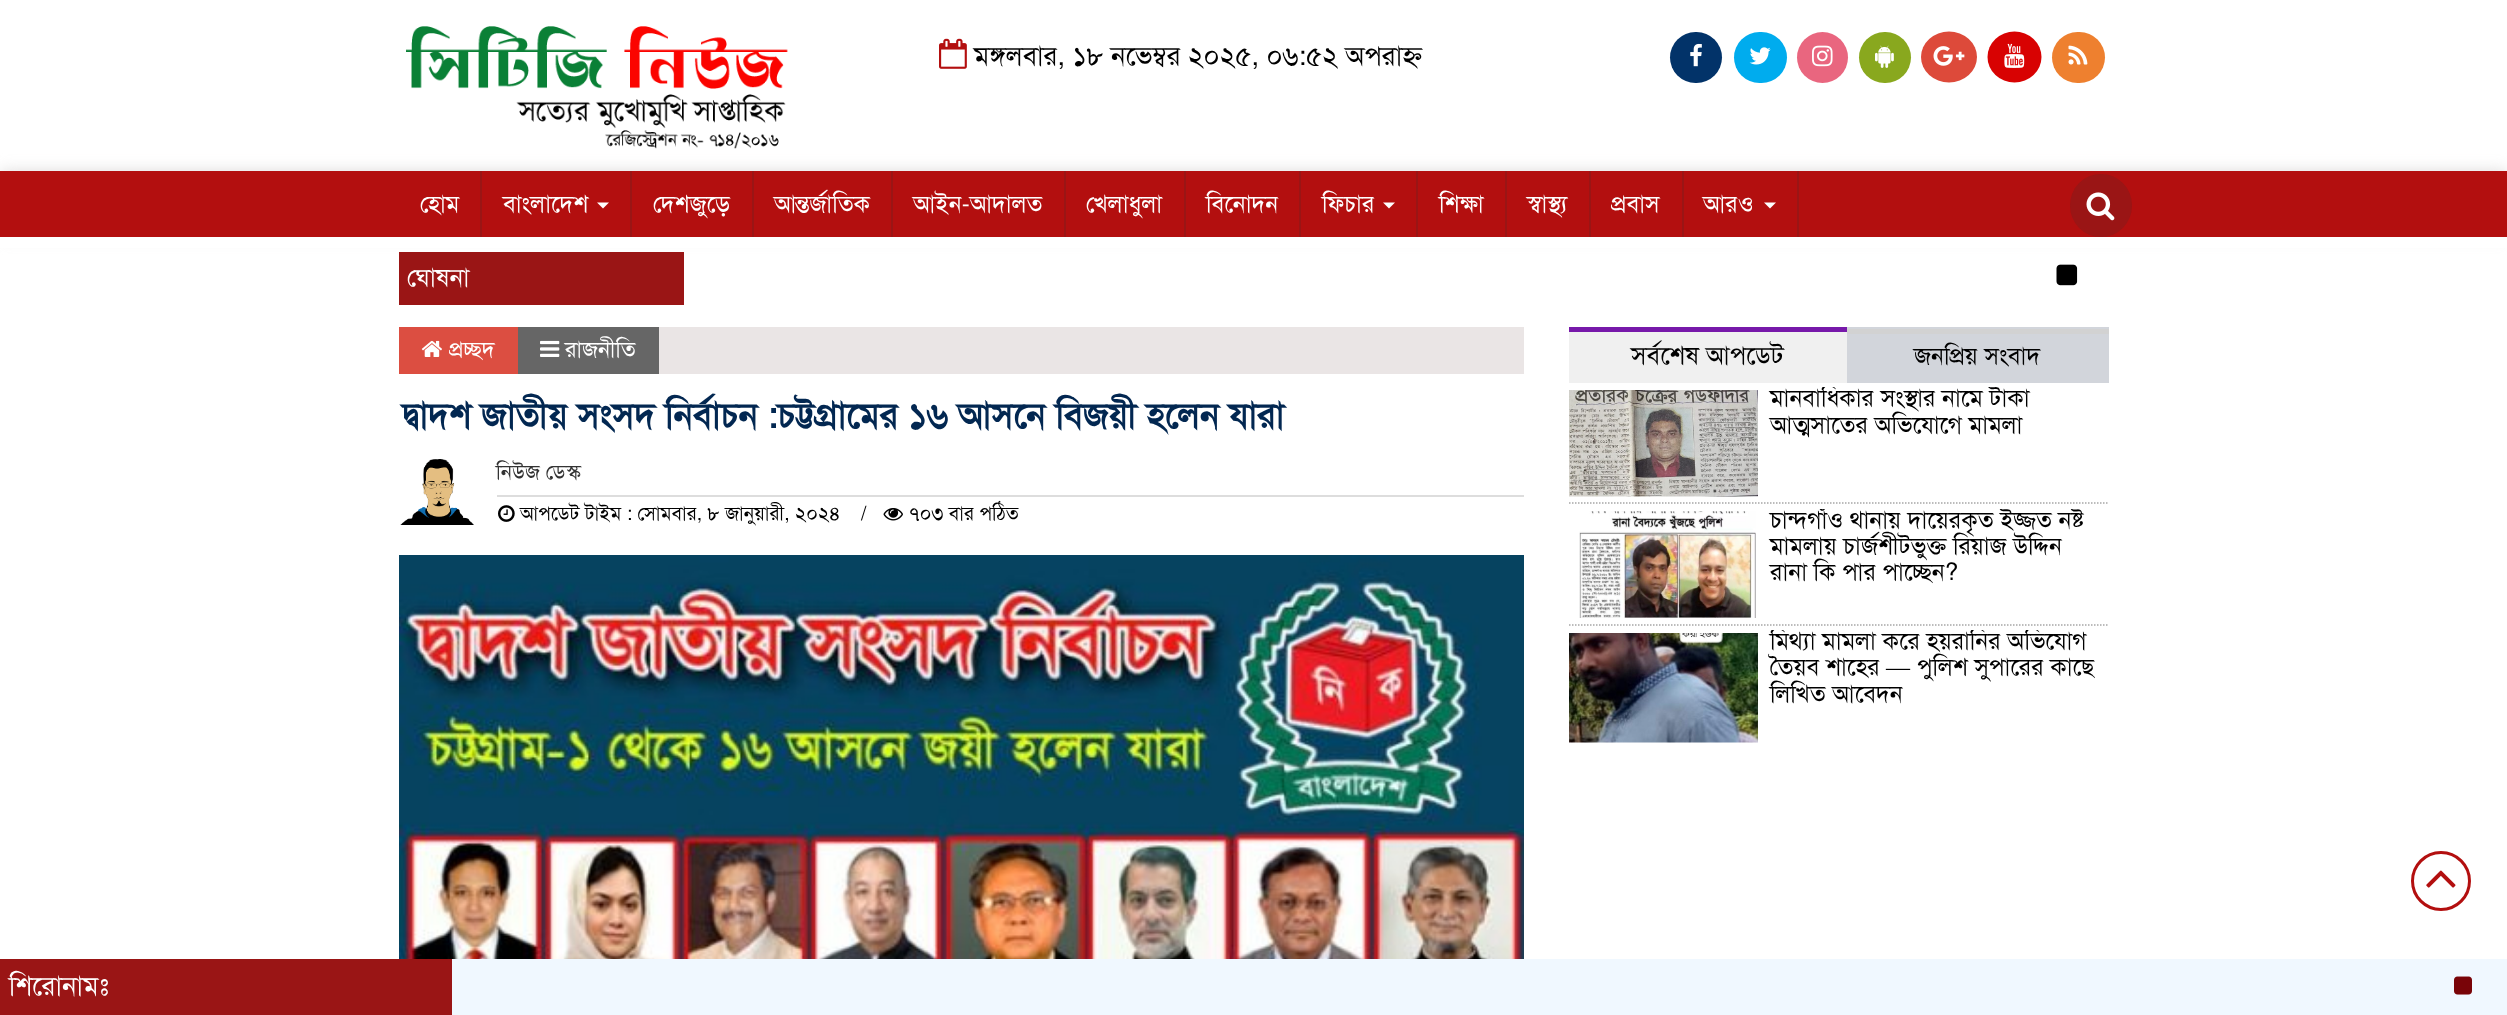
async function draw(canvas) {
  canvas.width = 2507
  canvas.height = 1015
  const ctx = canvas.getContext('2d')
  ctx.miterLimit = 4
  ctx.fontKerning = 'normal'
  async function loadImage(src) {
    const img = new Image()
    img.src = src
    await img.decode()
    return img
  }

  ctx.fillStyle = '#fff'
  ctx.fillRect(0, 0, 2507, 1015)
  ctx.fillStyle = '#dddbdb'
  ctx.filter = 'blur(7.5px)'
  ctx.beginPath()
  ctx.rect(0, 171, 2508, 66)
  ctx.fill()
  ctx.filter = 'none'
  ctx.drawImage(await loadImage('image0.png'), 406, 26, 382, 123)
  ctx.drawImage(await loadImage('image1.png'), 939, 38, 28, 31)
  ctx.font = '27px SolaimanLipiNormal'
  ctx.fillStyle = '#000'
  ctx.fillText('মঙ্গলবার, ১৮ নভেম্বর ২০২৫, ০৬:৫২ অপরাহ্ন', 974, 65)
  ctx.fillStyle = '#023369'
  ctx.beginPath()
  ctx.roundRect(1670, 32, 52, 51, 25.5)
  ctx.fill()
  ctx.drawImage(await loadImage('image2.png'), 1690, 43, 12, 24)
  ctx.fillStyle = '#00acee'
  ctx.beginPath()
  ctx.roundRect(1734, 32, 53, 51, 25.5)
  ctx.fill()
  ctx.drawImage(await loadImage('image3.png'), 1749, 47, 22, 18)
  ctx.fillStyle = '#e9667f'
  ctx.beginPath()
  ctx.arc(1822.5, 57.5, 25.5, 0, 2 * Math.PI)
  ctx.fill()
  ctx.drawImage(await loadImage('image4.png'), 1812, 45, 21, 22)
  ctx.fillStyle = '#89a81e'
  ctx.beginPath()
  ctx.roundRect(1859, 32, 52, 51, 25.5)
  ctx.fill()
  ctx.drawImage(await loadImage('image5.png'), 1875, 45, 19, 23)
  ctx.fillStyle = '#dd4a3a'
  ctx.beginPath()
  ctx.ellipse(1949, 57, 28, 25.5, 0, 0, 2 * Math.PI)
  ctx.fill()
  ctx.drawImage(await loadImage('image6.png'), 1933, 46, 32, 20)
  ctx.fillStyle = '#d80202'
  ctx.beginPath()
  ctx.ellipse(2014.5, 57, 27, 25.5, 0, 0, 2 * Math.PI)
  ctx.fill()
  ctx.drawImage(await loadImage('image7.png'), 2004, 43, 21, 25)
  ctx.fillStyle = '#ee802f'
  ctx.beginPath()
  ctx.roundRect(2052, 32, 53, 51, 25.5)
  ctx.fill()
  ctx.drawImage(await loadImage('image8.png'), 2068, 45, 20, 20)
  ctx.fillStyle = '#b30f0f'
  ctx.fillRect(0, 171, 2507, 66)
  ctx.fillStyle = '#9a1515'
  ctx.fillRect(480, 171, 2, 66)
  ctx.font = '24px SolaimanLipiNormal'
  ctx.fillStyle = '#fff'
  ctx.fillText('হোম', 420, 212)
  ctx.fillStyle = '#9a1515'
  ctx.fillRect(630, 171, 2, 66)
  ctx.fillStyle = '#fff'
  ctx.fillText('বাংলাদেশ', 503, 212)
  ctx.beginPath()
  ctx.moveTo(597, 202.5)
  ctx.lineTo(609, 202.5)
  ctx.lineTo(603, 208.5)
  ctx.closePath()
  ctx.fill()
  ctx.fillStyle = '#9a1515'
  ctx.fillRect(752, 171, 2, 66)
  ctx.fillStyle = '#fff'
  ctx.fillText('দেশজুড়ে', 653, 212)
  ctx.fillStyle = '#9a1515'
  ctx.fillRect(891, 171, 2, 66)
  ctx.fillStyle = '#fff'
  ctx.fillText('আন্তর্জাতিক', 774, 212)
  ctx.fillStyle = '#9a1515'
  ctx.fillRect(1064, 171, 2, 66)
  ctx.fillStyle = '#fff'
  ctx.fillText('আইন-আদালত', 913, 212)
  ctx.fillStyle = '#9a1515'
  ctx.fillRect(1184, 171, 2, 66)
  ctx.fillStyle = '#fff'
  ctx.fillText('খেলাধুলা', 1086, 212)
  ctx.fillStyle = '#9a1515'
  ctx.fillRect(1299, 171, 2, 66)
  ctx.fillStyle = '#fff'
  ctx.fillText('বিনোদন', 1206, 212)
  ctx.fillStyle = '#9a1515'
  ctx.fillRect(1416, 171, 2, 66)
  ctx.fillStyle = '#fff'
  ctx.fillText('ফিচার', 1322, 212)
  ctx.beginPath()
  ctx.moveTo(1383, 202.5)
  ctx.lineTo(1395, 202.5)
  ctx.lineTo(1389, 208.5)
  ctx.closePath()
  ctx.fill()
  ctx.fillStyle = '#9a1515'
  ctx.fillRect(1505, 171, 2, 66)
  ctx.fillStyle = '#fff'
  ctx.fillText('শিক্ষা', 1439, 212)
  ctx.fillStyle = '#9a1515'
  ctx.fillRect(1589, 171, 2, 66)
  ctx.fillStyle = '#fff'
  ctx.fillText('স্বাস্থ্য', 1527, 212)
  ctx.fillStyle = '#9a1515'
  ctx.fillRect(1682, 171, 2, 66)
  ctx.fillStyle = '#fff'
  ctx.fillText('প্রবাস', 1611, 212)
  ctx.fillStyle = '#9a1515'
  ctx.fillRect(1797, 171, 2, 66)
  ctx.fillStyle = '#fff'
  ctx.fillText('আরও', 1703, 212)
  ctx.beginPath()
  ctx.moveTo(1764, 202.5)
  ctx.lineTo(1776, 202.5)
  ctx.lineTo(1770, 208.5)
  ctx.closePath()
  ctx.fill()
  ctx.fillStyle = '#9a1515'
  ctx.beginPath()
  ctx.roundRect(2070, 174, 62, 63, 31)
  ctx.fill()
  ctx.drawImage(await loadImage('image9.png'), 2086, 192, 29, 29)
  ctx.fillStyle = '#fff'
  ctx.fillRect(0, 237, 2507, 11)
  ctx.fillStyle = '#9a1515'
  ctx.fillRect(399, 252, 285, 53)
  ctx.font = '25.5px SolaimanLipiNormal'
  ctx.fillStyle = '#fff'
  ctx.fillText('ঘোষনা', 407, 286)
  ctx.drawImage(await loadImage('image10.png'), 2056, 264, 22, 22)
  ctx.fillStyle = '#eae5e5'
  ctx.fillRect(659, 327, 865, 47)
  ctx.fillStyle = '#dc4e41'
  ctx.fillRect(399, 327, 119, 47)
  ctx.drawImage(await loadImage('image11.png'), 421, 340, 21, 17)
  ctx.font = '22.5px SolaimanLipiNormal'
  ctx.fillStyle = '#fff'
  ctx.fillText('প্রচ্ছদ', 449, 357)
  ctx.fillStyle = '#666'
  ctx.fillRect(518, 327, 141, 47)
  ctx.drawImage(await loadImage('image12.png'), 540, 340, 20, 17)
  ctx.fillStyle = '#fff'
  ctx.fillText('রাজনীতি', 565, 357)
  ctx.font = 'bold 36px SolaimanLipiNormal'
  ctx.fillStyle = '#022751'
  ctx.fillText('দ্বাদশ জাতীয় সংসদ নির্বাচন :চট্টগ্রামের ১৬ আসনে বিজয়ী হলেন যারা', 402, 428)
  ctx.drawImage(await loadImage('image13.png'), 400, 459, 74, 66)
  ctx.fillStyle = '#ddd'
  ctx.fillRect(497, 495, 1027, 2)
  ctx.font = '21px SolaimanLipiNormal'
  ctx.fillStyle = '#333'
  ctx.fillText('নিউজ ডেস্ক', 496, 479)
  ctx.drawImage(await loadImage('image14.png'), 498, 505, 17, 17)
  ctx.font = '19.5px SolaimanLipiNormal'
  ctx.fillStyle = '#000'
  ctx.fillText('আপডেট টাইম : সোমবার, ৮ জানুয়ারী, ২০২৪', 520, 520)
  ctx.fillText('/', 861, 520)
  ctx.drawImage(await loadImage('image15.png'), 883, 508, 20, 13)
  ctx.fillText('৭০৩ বার পঠিত', 908, 520)
  ctx.drawImage(await loadImage('image16.png'), 399, 555, 1125, 404)
  ctx.fillStyle = '#d2d5db'
  ctx.fillRect(1847, 327, 262, 56)
  ctx.fillStyle = '#f0f0f0'
  ctx.fillRect(1569, 332, 278, 51)
  ctx.fillStyle = '#7719aa'
  ctx.fillRect(1569, 327, 278, 5)
  ctx.font = '25.5px SolaimanLipiNormal'
  ctx.fillStyle = '#000'
  ctx.fillText('সর্বশেষ আপডেট', 1631, 364)
  ctx.fillStyle = '#d2d2d2'
  ctx.fillRect(1847, 329, 262, 5)
  ctx.font = '24px SolaimanLipiNormal'
  ctx.fillStyle = '#000'
  ctx.fillText('জনপ্রিয় সংবাদ', 1914, 364)
  ctx.beginPath()
  ctx.moveTo(1569, 503)
  ctx.lineTo(2109, 503)
  ctx.strokeStyle = '#a6a6a6'
  ctx.lineWidth = 1.5
  ctx.setLineDash([1.5, 1.5])
  ctx.stroke()
  ctx.drawImage(await loadImage('image17.png'), 1569, 390, 189, 107)
  ctx.save()
  ctx.beginPath()
  ctx.rect(1569, 387, 540, 116)
  ctx.clip()
  ctx.fillText('মানবাধিকার সংস্থার নামে টাকা', 1770, 406)
  ctx.restore()
  ctx.fillText('আত্মসাতের অভিযোগে মামলা', 1770, 433)
  ctx.beginPath()
  ctx.moveTo(1569, 625)
  ctx.lineTo(2109, 625)
  ctx.stroke()
  ctx.drawImage(await loadImage('image18.png'), 1579, 511, 177, 107)
  ctx.save()
  ctx.beginPath()
  ctx.rect(1569, 509, 540, 115)
  ctx.clip()
  ctx.fillText('চান্দগাঁও থানায় দায়েরকৃত ইজ্জত নষ্ট', 1770, 528)
  ctx.restore()
  ctx.fillText('মামলায় চার্জশীটভুক্ত রিয়াজ উদ্দিন', 1770, 554)
  ctx.fillText('রানা কি পার পাচ্ছেন?', 1770, 580)
  ctx.drawImage(await loadImage('image19.png'), 1569, 633, 189, 110)
  ctx.save()
  ctx.beginPath()
  ctx.rect(1569, 630, 540, 113)
  ctx.clip()
  ctx.fillText('মিথ্যা মামলা করে হয়রানির অভিযোগ', 1770, 649)
  ctx.restore()
  ctx.fillText('তৈয়ব শাহের', 1770, 675)
  ctx.font = '24px Liberation Serif'
  ctx.fillText('—', 1886, 675)
  ctx.font = '24px SolaimanLipiNormal'
  ctx.fillText('পুলিশ সুপারের কাছে', 1917, 675)
  ctx.fillText('লিখিত আবেদন', 1770, 702)
  ctx.beginPath()
  ctx.arc(2441, 881, 28.5, 0, 2 * Math.PI)
  ctx.strokeStyle = '#b30f0f'
  ctx.lineWidth = 3
  ctx.setLineDash([])
  ctx.stroke()
  ctx.drawImage(await loadImage('image20.png'), 2426, 870, 30, 18)
  ctx.fillStyle = '#f0f8ff'
  ctx.fillRect(452, 959, 2055, 56)
  ctx.fillStyle = '#9a1515'
  ctx.fillRect(0, 959, 452, 56)
  ctx.font = '27px SolaimanLipiNormal'
  ctx.fillStyle = '#fff'
  ctx.fillText('শিরোনামঃ', 9, 995)
  ctx.drawImage(await loadImage('image21.png'), 2454, 976, 18, 19)
}

draw(document.querySelector('canvas'))
